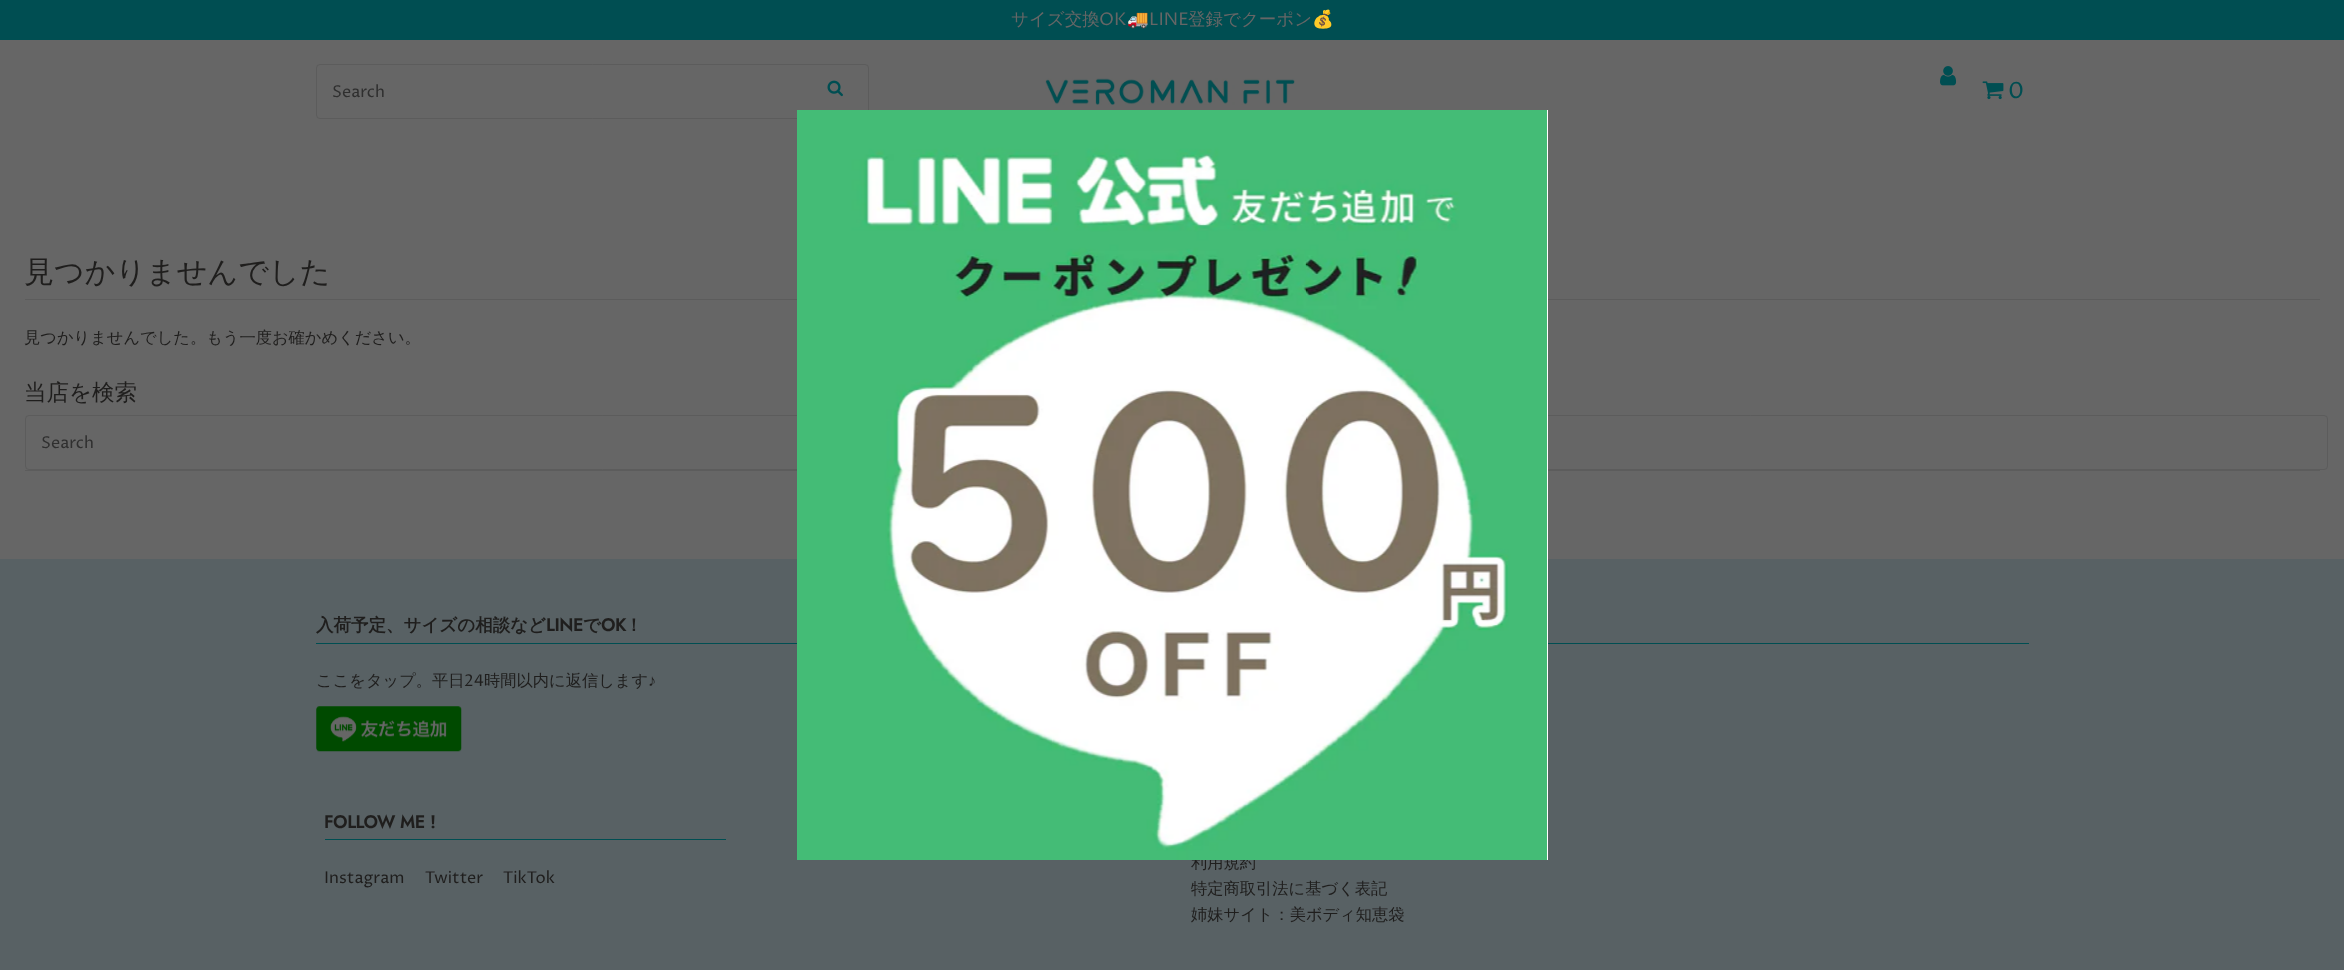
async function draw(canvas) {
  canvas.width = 2344
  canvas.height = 970
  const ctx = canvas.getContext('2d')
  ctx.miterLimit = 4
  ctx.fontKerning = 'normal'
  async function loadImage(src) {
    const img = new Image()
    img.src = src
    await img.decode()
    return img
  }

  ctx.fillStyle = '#666'
  ctx.fillRect(0, 0, 2344, 970)
  ctx.fillStyle = '#004e52'
  ctx.fillRect(0, 0, 2344, 40)
  ctx.font = '500 17.5px WenQuanYi Zen Hei'
  ctx.fillStyle = '#666'
  ctx.fillText('サイズ交換', 1011, 25)
  ctx.font = '17.5px Proza Libre'
  ctx.fillText('OK', 1099, 25)
  ctx.font = '17.5px Noto Color Emoji'
  ctx.fillText('🚚', 1127, 25)
  ctx.font = '17.5px Proza Libre'
  ctx.fillText('LINE', 1149, 25)
  ctx.font = '500 17.5px WenQuanYi Zen Hei'
  ctx.fillText('登録でクーポン', 1188, 25)
  ctx.font = '17.5px Noto Color Emoji'
  ctx.fillText('💰', 1312, 25)
  ctx.beginPath()
  ctx.roundRect(316.5, 64.5, 552, 54, 3.5)
  ctx.strokeStyle = '#5c5c5c'
  ctx.stroke()
  ctx.font = '16.25px Proza Libre'
  ctx.fillStyle = '#2f2f2f'
  ctx.fillText('Search', 332, 97)
  ctx.drawImage(await loadImage('image0.png'), 827, 80, 16, 17)
  ctx.drawImage(await loadImage('image1.png'), 1045, 78, 250, 27)
  ctx.drawImage(await loadImage('image2.png'), 1940, 66, 17, 20)
  ctx.drawImage(await loadImage('image3.png'), 1982, 81, 22, 19)
  ctx.font = '22.5px Proza Libre'
  ctx.fillStyle = '#004e52'
  ctx.fillText('0', 2008, 98)
  ctx.fillStyle = '#5c5c5c'
  ctx.fillRect(25, 299, 2295, 1)
  ctx.font = '500 30px WenQuanYi Zen Hei'
  ctx.fillStyle = '#1f1e1d'
  ctx.fillText('見つかりませんでした', 24, 282)
  ctx.font = '500 16.25px WenQuanYi Zen Hei'
  ctx.fillText('見つかりませんでした。もう一度お確かめください。', 24, 343)
  ctx.fillStyle = '#5c5c5c'
  ctx.fillRect(25, 470, 2295, 1)
  ctx.font = '500 22.5px WenQuanYi Zen Hei'
  ctx.fillStyle = '#1f1e1d'
  ctx.fillText('当店を検索', 24, 400)
  ctx.beginPath()
  ctx.roundRect(25.5, 415.5, 2302, 54, 3.5)
  ctx.stroke()
  ctx.font = '16.25px Proza Libre'
  ctx.fillStyle = '#2f2f2f'
  ctx.fillText('Search', 41, 448)
  ctx.fillStyle = '#586164'
  ctx.fillRect(0, 559, 2344, 411)
  ctx.fillStyle = '#fff'
  ctx.fillRect(1547, 110, 1, 750)
  ctx.font = '500 16.25px WenQuanYi Zen Hei'
  ctx.fillStyle = '#1f1e1d'
  ctx.fillText('利用規約', 1191, 868)
  ctx.drawImage(await loadImage('image4.png'), 797, 110, 750, 750)
  ctx.fillStyle = '#004e52'
  ctx.fillRect(316, 643, 481, 1)
  ctx.font = 'bold 17.5px WenQuanYi Zen Hei'
  ctx.fillStyle = '#1f1e1d'
  ctx.fillText('入荷予定、サイズの相談など', 316, 631)
  ctx.font = 'bold 17.5px Jost'
  ctx.fillText('LINE', 546, 631)
  ctx.font = 'bold 17.5px WenQuanYi Zen Hei'
  ctx.fillText('で', 583, 631)
  ctx.font = 'bold 17.5px Jost'
  ctx.fillText('OK', 601, 631)
  ctx.font = 'bold 17.5px WenQuanYi Zen Hei'
  ctx.fillText('！', 625, 631)
  ctx.font = '500 16.25px WenQuanYi Zen Hei'
  ctx.fillText('ここをタップ。平日', 316, 686)
  ctx.font = '16.25px Proza Libre'
  ctx.fillText('24', 464, 686)
  ctx.font = '500 16.25px WenQuanYi Zen Hei'
  ctx.fillText('時間以内に返信します', 484, 686)
  ctx.font = '16.25px Liberation Serif'
  ctx.fillText('♪', 648, 686)
  ctx.drawImage(await loadImage('image5.png'), 316, 706, 146, 46)
  ctx.fillStyle = '#004e52'
  ctx.fillRect(325, 839, 401, 1)
  ctx.font = 'bold 17.5px Jost'
  ctx.fillStyle = '#1f1e1d'
  ctx.fillText('FOLLOW ME !', 324, 828)
  ctx.font = '16.25px Proza Libre'
  ctx.fillText('Instagram', 324, 883)
  ctx.fillText('Twitter', 425, 883)
  ctx.fillText('TikTok', 503, 883)
  ctx.fillStyle = '#004e52'
  ctx.fillRect(1548, 643, 481, 1)
  ctx.font = '500 16.25px WenQuanYi Zen Hei'
  ctx.fillStyle = '#1f1e1d'
  ctx.fillText('特定商取引法に基づく表記', 1191, 894)
  ctx.fillText('姉妹サイト：美ボディ知恵袋', 1191, 920)
}

draw(document.querySelector('canvas'))
